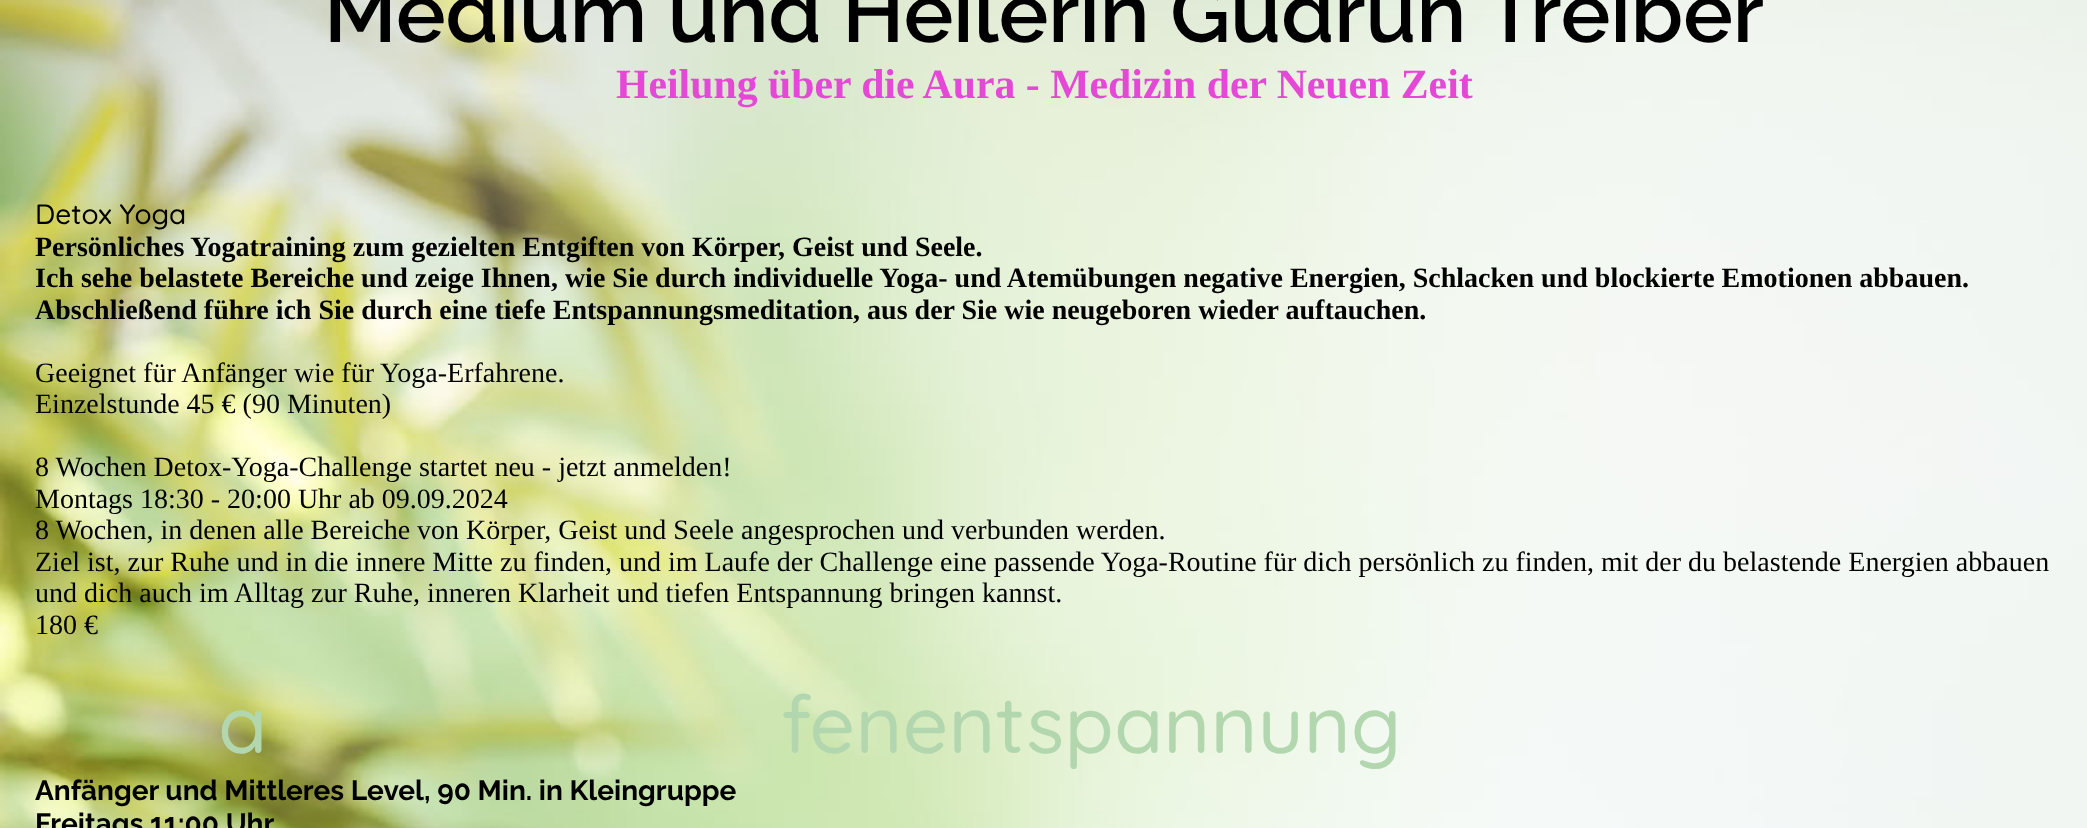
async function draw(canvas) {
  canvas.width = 2087
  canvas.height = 828
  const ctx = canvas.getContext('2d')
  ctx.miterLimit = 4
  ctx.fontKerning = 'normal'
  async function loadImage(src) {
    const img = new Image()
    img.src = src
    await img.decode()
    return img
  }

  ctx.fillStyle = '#fff'
  ctx.fillRect(0, 0, 2087, 828)
  ctx.drawImage(await loadImage('image0.png'), 0, 0, 2087, 828)
  ctx.font = '600 83.5px Raleway'
  ctx.fillStyle = '#000'
  ctx.fillText('Medium und Heilerin Gudrun Treiber', 324, 42)
  ctx.font = 'bold 41.75px Liberation Serif'
  ctx.fillStyle = '#e547d7'
  ctx.fillText('Heilung über die Aura - Medizin der Neuen Zeit', 616, 98)
  ctx.font = '500 28px Quicksand'
  ctx.fillStyle = '#000'
  ctx.fillText('Detox Yoga', 35, 224)
  ctx.font = 'bold 28px Liberation Serif'
  ctx.fillText('Persönliches Yogatraining zum gezielten Entgiften von Körper, Geist und Seele.', 35, 256)
  ctx.fillText('Ich sehe belastete Bereiche und zeige Ihnen, wie Sie durch individuelle Yoga- und Atemübungen negative Energien, Schlacken und blockierte Emotionen abbauen.', 35, 287)
  ctx.fillText('Abschließend führe ich Sie durch eine tiefe Entspannungsmeditation, aus der Sie wie neugeboren wieder auftauchen.', 35, 319)
  ctx.font = '28px Liberation Serif'
  ctx.fillText('Geeignet für Anfänger wie für Yoga-Erfahrene.', 35, 382)
  ctx.fillText('Einzelstunde 45 € (90 Minuten)', 35, 413)
  ctx.fillText('8 Wochen Detox-Yoga-Challenge startet neu - jetzt anmelden!', 35, 476)
  ctx.fillText('Montags 18:30 - 20:00 Uhr ab 09.09.2024', 35, 508)
  ctx.fillText('8 Wochen, in denen alle Bereiche von Körper, Geist und Seele angesprochen und verbunden werden.', 35, 539)
  ctx.fillText('Ziel ist, zur Ruhe und in die innere Mitte zu finden, und im Laufe der Challenge eine passende Yoga-Routine für dich persönlich zu finden, mit der du belastende Energien abbauen', 35, 571)
  ctx.fillText('und dich auch im Alltag zur Ruhe, inneren Klarheit und tiefen Entspannung bringen kannst.', 35, 602)
  ctx.fillText('180 €', 35, 634)
  ctx.font = '500 80.5px Quicksand'
  ctx.fillStyle = '#b2d7af'
  ctx.fillText('a', 218, 753)
  ctx.fillText('fenentspannung', 781, 753)
  ctx.font = 'bold 28px Raleway'
  ctx.fillStyle = '#000'
  ctx.fillText('Anfänger und Mittleres Level, 90 Min. in Kleingruppe', 35, 800)
  ctx.fillText('Freitags 11:00 Uhr', 35, 833)
}

draw(document.querySelector('canvas'))
